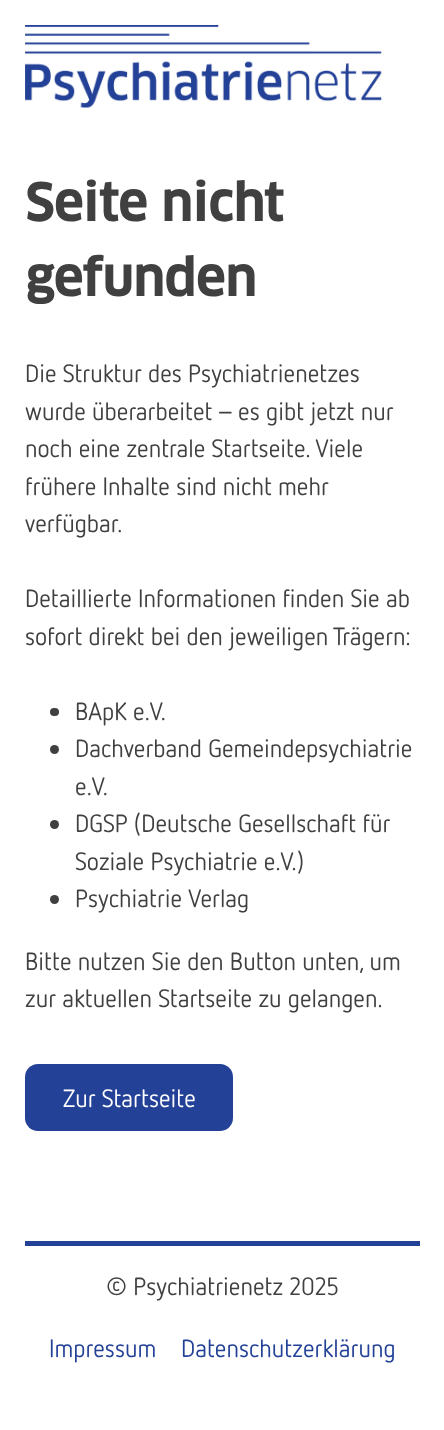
async function draw(canvas) {
  canvas.width = 444
  canvas.height = 1430
  const ctx = canvas.getContext('2d')
  ctx.miterLimit = 4
  ctx.fontKerning = 'normal'
  async function loadImage(src) {
    const img = new Image()
    img.src = src
    await img.decode()
    return img
  }

  ctx.fillStyle = '#fff'
  ctx.fillRect(0, 0, 444, 1430)
  ctx.drawImage(await loadImage('image0.png'), 25, 25, 357, 83)
  ctx.font = 'bold 50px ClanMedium'
  ctx.fillStyle = '#404040'
  ctx.fillText('Seite nicht', 25, 221)
  ctx.fillText('gefunden', 25, 296)
  ctx.font = '25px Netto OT'
  ctx.fillText('Die Struktur des Psychiatrienetzes', 25, 382)
  ctx.fillText('wurde überarbeitet – es gibt jetzt nur', 25, 420)
  ctx.fillText('noch eine zentrale Startseite. Viele', 25, 457)
  ctx.fillText('frühere Inhalte sind nicht mehr', 25, 495)
  ctx.fillText('verfügbar.', 25, 532)
  ctx.fillText('Detaillierte Informationen finden Sie ab', 25, 607)
  ctx.fillText('sofort direkt bei den jeweiligen Trägern:', 25, 645)
  ctx.beginPath()
  ctx.roundRect(50, 708, 9, 8, 4)
  ctx.fill()
  ctx.fillText('BApK e.V.', 75, 720)
  ctx.beginPath()
  ctx.arc(54.5, 749.5, 4.5, 0, 2 * Math.PI)
  ctx.fill()
  ctx.fillText('Dachverband Gemeindepsychiatrie', 75, 757)
  ctx.fillText('e.V.', 75, 795)
  ctx.beginPath()
  ctx.arc(54.5, 824.5, 4.5, 0, 2 * Math.PI)
  ctx.fill()
  ctx.fillText('DGSP (Deutsche Gesellschaft für', 75, 832)
  ctx.fillText('Soziale Psychiatrie e.V.)', 75, 870)
  ctx.beginPath()
  ctx.arc(54.5, 899.5, 4.5, 0, 2 * Math.PI)
  ctx.fill()
  ctx.fillText('Psychiatrie Verlag', 75, 907)
  ctx.fillText('Bitte nutzen Sie den Button unten, um', 25, 970)
  ctx.fillText('zur aktuellen Startseite zu gelangen.', 25, 1007)
  ctx.fillStyle = '#234197'
  ctx.beginPath()
  ctx.roundRect(25, 1064, 208, 67, 13)
  ctx.fill()
  ctx.fillStyle = '#fff'
  ctx.fillText('Zur Startseite', 63, 1107)
  ctx.fillStyle = '#234197'
  ctx.fillRect(25, 1241, 395, 5)
  ctx.fillStyle = '#404040'
  ctx.fillText('© Psychiatrienetz 2025', 106, 1295)
  ctx.fillStyle = '#234197'
  ctx.fillText('Impressum', 49, 1357)
  ctx.fillText('Datenschutzerklärung', 181, 1357)
}

draw(document.querySelector('canvas'))
